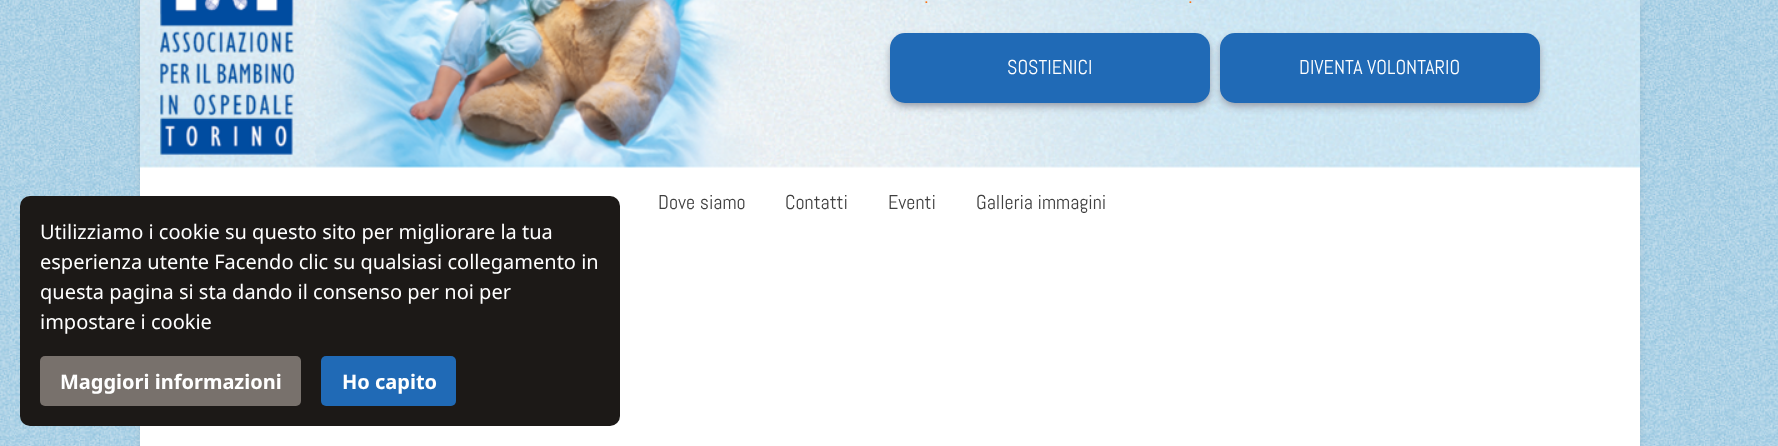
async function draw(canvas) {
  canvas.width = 1778
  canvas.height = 446
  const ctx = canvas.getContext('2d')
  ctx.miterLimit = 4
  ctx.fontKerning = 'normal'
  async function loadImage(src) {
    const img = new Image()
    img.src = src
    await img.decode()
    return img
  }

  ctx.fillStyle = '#fff'
  ctx.fillRect(0, 0, 1778, 446)
  ctx.drawImage(await loadImage('image0.png'), 0, 0, 1778, 446)
  ctx.fillStyle = '#0000001a'
  ctx.filter = 'blur(4px)'
  ctx.beginPath()
  ctx.rect(141, -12, 1498, 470)
  ctx.fill()
  ctx.filter = 'none'
  ctx.fillStyle = '#fff'
  ctx.fillRect(140, 167, 1500, 279)
  ctx.drawImage(await loadImage('image1.png'), 140, 0, 1500, 168)
  ctx.drawImage(await loadImage('image2.png'), 160, 0, 135, 155)
  ctx.font = '22px Abel'
  ctx.fillStyle = '#f97316'
  ctx.fillText('.', 924, 3)
  ctx.fillText('.', 1188, 3)
  ctx.fillStyle = '#9ca3af'
  ctx.filter = 'blur(2.5px)'
  ctx.beginPath()
  ctx.roundRect(893, 38, 315, 65, 13)
  ctx.fill()
  ctx.filter = 'none'
  ctx.filter = 'blur(4px)'
  ctx.beginPath()
  ctx.roundRect(891, 39, 318, 67, 14)
  ctx.fill()
  ctx.filter = 'none'
  ctx.fillStyle = '#206ab6'
  ctx.beginPath()
  ctx.roundRect(890, 33, 320, 70, 15)
  ctx.fill()
  ctx.font = '20px Abel'
  ctx.fillStyle = '#fff'
  ctx.fillText('SOSTIENICI', 1007, 74)
  ctx.fillStyle = '#9ca3af'
  ctx.filter = 'blur(2.5px)'
  ctx.beginPath()
  ctx.roundRect(1223, 38, 315, 65, 13)
  ctx.fill()
  ctx.filter = 'none'
  ctx.filter = 'blur(4px)'
  ctx.beginPath()
  ctx.roundRect(1221, 39, 318, 67, 14)
  ctx.fill()
  ctx.filter = 'none'
  ctx.fillStyle = '#206ab6'
  ctx.beginPath()
  ctx.roundRect(1220, 33, 320, 70, 15)
  ctx.fill()
  ctx.fillStyle = '#fff'
  ctx.fillText('DIVENTA VOLONTARIO', 1299, 74)
  ctx.fillStyle = '#404040'
  ctx.fillText('Dove siamo', 658, 209)
  ctx.fillText('Contatti', 785, 209)
  ctx.fillText('Eventi', 888, 209)
  ctx.fillText('Galleria immagini', 976, 209)
  ctx.fillStyle = '#1c1917'
  ctx.beginPath()
  ctx.roundRect(20, 196, 600, 230, 10)
  ctx.fill()
  ctx.font = '20px Noto Sans'
  ctx.fillStyle = '#fff'
  ctx.fillText('Utilizziamo i cookie su questo sito per migliorare la tua', 40, 239)
  ctx.fillText('esperienza utente Facendo clic su qualsiasi collegamento in', 40, 269)
  ctx.fillText('questa pagina si sta dando il consenso per noi per', 40, 299)
  ctx.fillText('impostare i cookie', 40, 329)
  ctx.fillStyle = '#78716c'
  ctx.beginPath()
  ctx.roundRect(40, 356, 261, 50, 5)
  ctx.fill()
  ctx.font = 'bold 20px Noto Sans'
  ctx.fillStyle = '#fff'
  ctx.fillText('Maggiori informazioni', 60, 389)
  ctx.fillStyle = '#206ab6'
  ctx.beginPath()
  ctx.roundRect(321, 356, 135, 50, 5)
  ctx.fill()
  ctx.fillStyle = '#fff'
  ctx.fillText('Ho capito', 342, 389)
}

draw(document.querySelector('canvas'))
